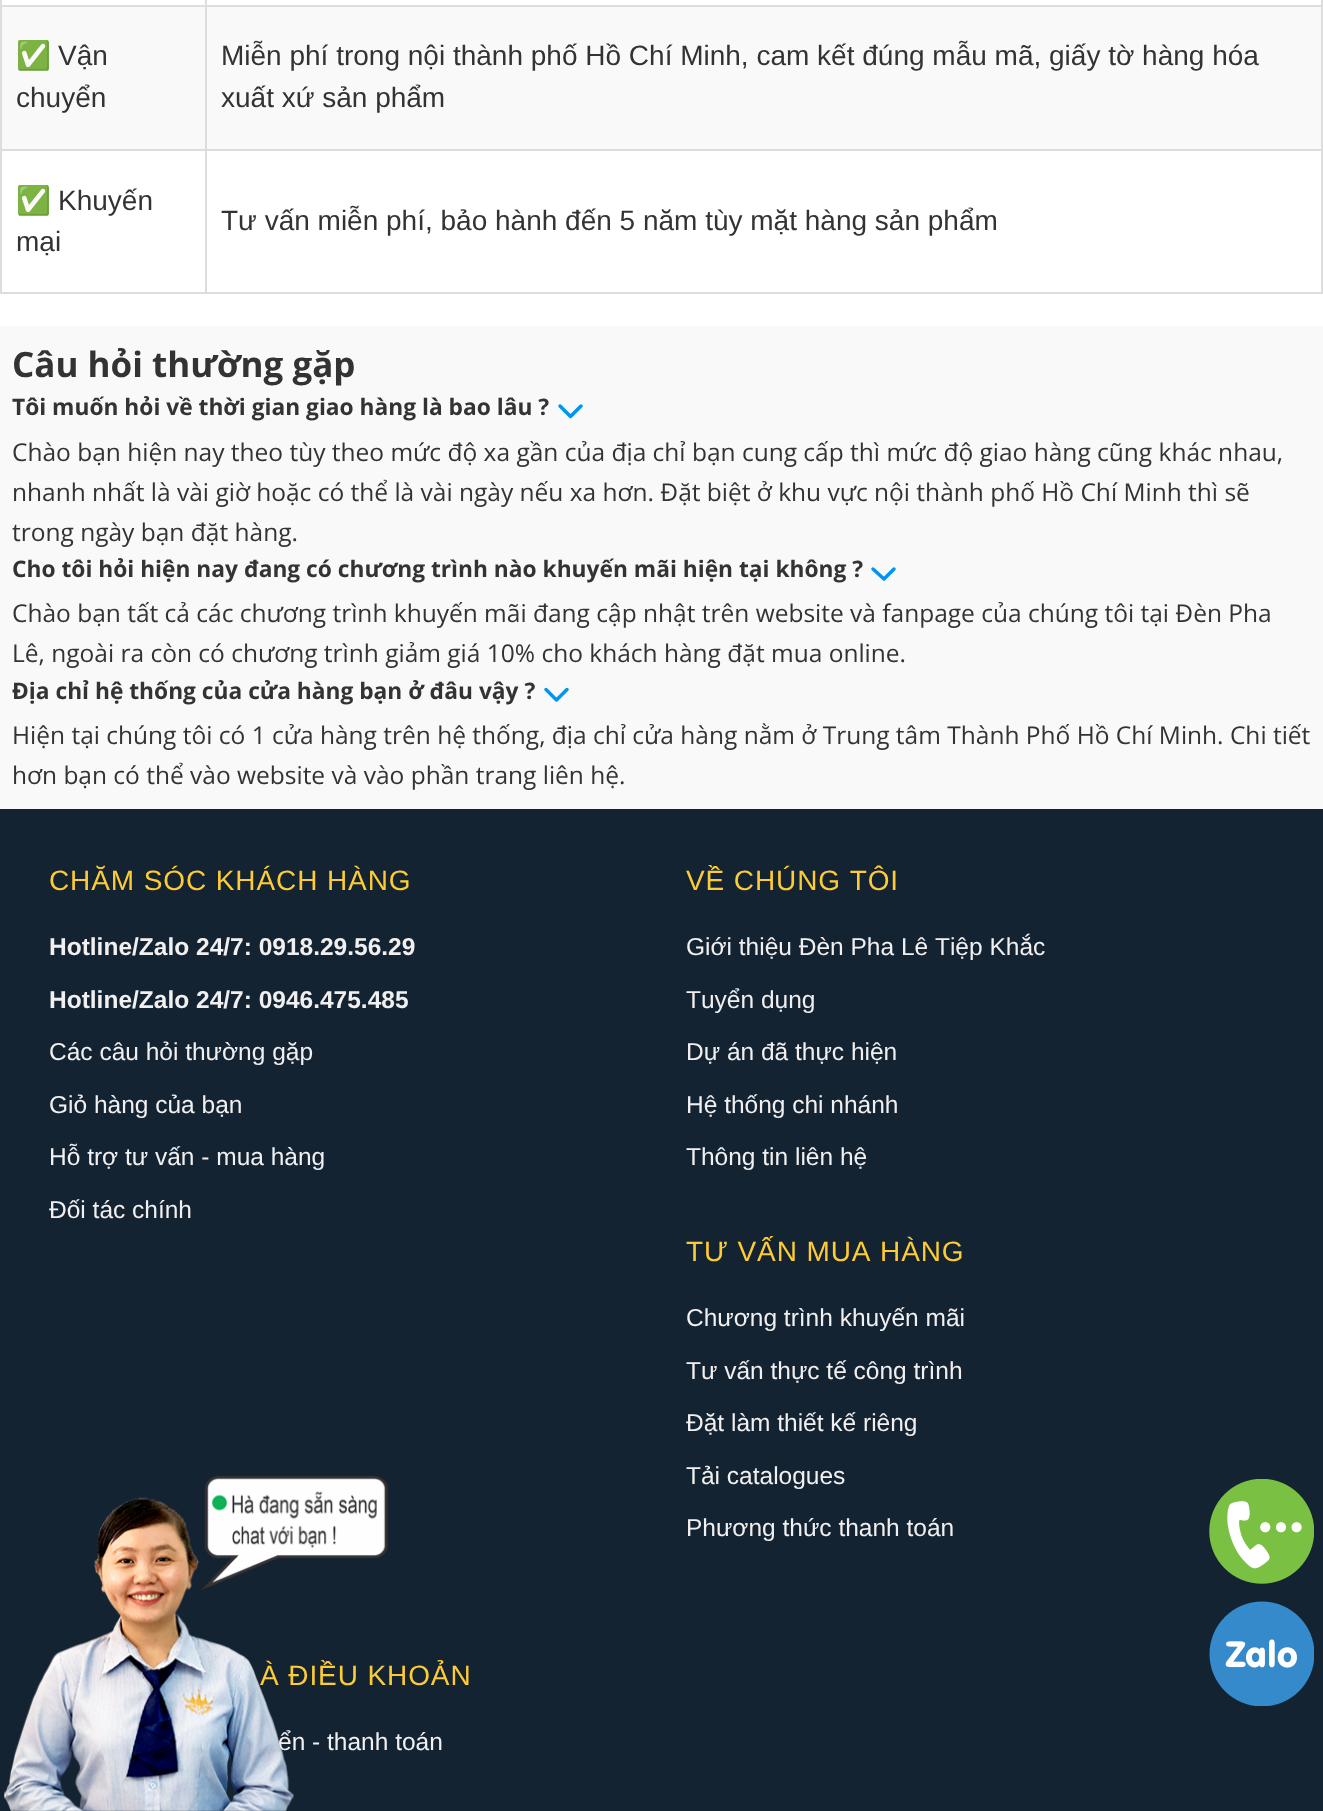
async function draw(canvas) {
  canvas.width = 1323
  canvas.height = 1811
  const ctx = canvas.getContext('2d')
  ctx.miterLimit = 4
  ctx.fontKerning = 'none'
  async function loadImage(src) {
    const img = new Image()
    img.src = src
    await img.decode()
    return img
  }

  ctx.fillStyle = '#fff'
  ctx.fillRect(0, 0, 1323, 1811)
  ctx.fillStyle = '#ddd'
  ctx.fillRect(1321, 0, 2, 294)
  ctx.fillRect(0, 292, 1323, 2)
  ctx.fillRect(0, 0, 2, 294)
  ctx.fillRect(205, 5, 1118, 2)
  ctx.fillStyle = '#f9f9f9'
  ctx.fillRect(2, 7, 1319, 142)
  ctx.fillStyle = '#ddd'
  ctx.fillRect(205, 149, 1118, 2)
  ctx.fillRect(205, 149, 2, 145)
  ctx.fillRect(0, 149, 207, 2)
  ctx.fillRect(205, 5, 2, 146)
  ctx.fillRect(0, 5, 207, 2)
  ctx.fillRect(205, 0, 2, 7)
  ctx.font = '28px Noto Color Emoji'
  ctx.fillStyle = '#333'
  ctx.fillText('✅', 16, 65)
  ctx.font = '28px Liberation Sans'
  ctx.fillText('Vận', 58, 65)
  ctx.fillText('chuyển', 16, 107)
  ctx.fillText('Miễn phí trong nội thành phố Hồ Chí Minh, cam kết đúng mẫu mã, giấy tờ hàng hóa', 221, 65)
  ctx.fillText('xuất xứ sản phẩm', 221, 107)
  ctx.font = '28px Noto Color Emoji'
  ctx.fillText('✅', 16, 210)
  ctx.font = '28px Liberation Sans'
  ctx.fillText('Khuyến', 58, 210)
  ctx.fillText('mại', 16, 251)
  ctx.fillText('Tư vấn miễn phí, bảo hành đến 5 năm tùy mặt hàng sản phẩm', 221, 230)
  ctx.fillStyle = '#f9f9f9'
  ctx.fillRect(0, 326, 1323, 483)
  ctx.font = 'bold 35px Open Sans'
  ctx.fillStyle = '#333'
  ctx.fillText('Câu hỏi thường gặp', 12, 377)
  ctx.font = 'bold 22.75px Open Sans'
  ctx.fillText('Tôi muốn hỏi về thời gian giao hàng là bao lâu ?', 12, 415)
  ctx.beginPath()
  ctx.moveTo(560, 406)
  ctx.lineTo(570.5, 416.5)
  ctx.lineTo(581, 406)
  ctx.strokeStyle = '#0194f3'
  ctx.lineWidth = 3.5
  ctx.lineCap = 'round'
  ctx.lineJoin = 'round'
  ctx.stroke()
  ctx.font = '24.5px Open Sans'
  ctx.fillText('Chào bạn hiện nay theo tùy theo mức độ xa gần của địa chỉ bạn cung cấp thì mức độ giao hàng cũng khác nhau,', 12, 461)
  ctx.fillText('nhanh nhất là vài giờ hoặc có thể là vài ngày nếu xa hơn. Đặt biệt ở khu vực nội thành phố Hồ Chí Minh thì sẽ', 12, 501)
  ctx.fillText('trong ngày bạn đặt hàng.', 12, 541)
  ctx.font = 'bold 22.75px Open Sans'
  ctx.fillText('Cho tôi hỏi hiện nay đang có chương trình nào khuyến mãi hiện tại không ?', 12, 577)
  ctx.beginPath()
  ctx.moveTo(873, 569)
  ctx.lineTo(884, 579)
  ctx.lineTo(894, 569)
  ctx.stroke()
  ctx.font = '24.5px Open Sans'
  ctx.fillText('Chào bạn tất cả các chương trình khuyến mãi đang cập nhật trên website và fanpage của chúng tôi tại Đèn Pha', 12, 622)
  ctx.fillText('Lê, ngoài ra còn có chương trình giảm giá 10% cho khách hàng đặt mua online.', 12, 662)
  ctx.font = 'bold 22.75px Open Sans'
  ctx.fillText('Địa chỉ hệ thống của cửa hàng bạn ở đâu vậy ?', 12, 699)
  ctx.beginPath()
  ctx.moveTo(546, 689.5)
  ctx.lineTo(556.5, 700)
  ctx.lineTo(567, 689.5)
  ctx.stroke()
  ctx.font = '24.5px Open Sans'
  ctx.fillText('Hiện tại chúng tôi có 1 cửa hàng trên hệ thống, địa chỉ cửa hàng nằm ở Trung tâm Thành Phố Hồ Chí Minh. Chi tiết', 12, 744)
  ctx.fillText('hơn bạn có thể vào website và vào phần trang liên hệ.', 12, 784)
  ctx.fillStyle = '#132332'
  ctx.fillRect(0, 809, 1323, 1002)
  ctx.letterSpacing = '0.9px'
  ctx.font = '28px Liberation Sans'
  ctx.fillStyle = '#fdcb35'
  ctx.fillText('CHĂM SÓC KHÁCH HÀNG', 49, 890)
  ctx.letterSpacing = '0px'
  ctx.font = 'bold 24.5px Liberation Sans'
  ctx.fillStyle = '#f1efef'
  ctx.fillText('Hotline/Zalo 24/7: 0918.29.56.29', 49, 955)
  ctx.fillText('Hotline/Zalo 24/7: 0946.475.485', 49, 1008)
  ctx.font = '24.5px Liberation Sans'
  ctx.fillText('Các câu hỏi thường gặp', 49, 1060)
  ctx.fillText('Giỏ hàng của bạn', 49, 1113)
  ctx.fillText('Hỗ trợ tư vấn - mua hàng', 49, 1165)
  ctx.fillText('Đối tác chính', 49, 1218)
  ctx.letterSpacing = '0.9px'
  ctx.font = '28px Liberation Sans'
  ctx.fillStyle = '#fdcb35'
  ctx.fillText('VỀ CHÚNG TÔI', 686, 890)
  ctx.letterSpacing = '0px'
  ctx.font = '24.5px Liberation Sans'
  ctx.fillStyle = '#f1efef'
  ctx.fillText('Giới thiệu Đèn Pha Lê Tiệp Khắc', 686, 955)
  ctx.fillText('Tuyển dụng', 686, 1008)
  ctx.fillText('Dự án đã thực hiện', 686, 1060)
  ctx.fillText('Hệ thống chi nhánh', 686, 1113)
  ctx.fillText('Thông tin liên hệ', 686, 1165)
  ctx.letterSpacing = '0.9px'
  ctx.font = '28px Liberation Sans'
  ctx.fillStyle = '#fdcb35'
  ctx.fillText('TƯ VẤN MUA HÀNG', 686, 1261)
  ctx.letterSpacing = '0px'
  ctx.font = '24.5px Liberation Sans'
  ctx.fillStyle = '#f1efef'
  ctx.fillText('Chương trình khuyến mãi', 686, 1326)
  ctx.fillText('Tư vấn thực tế công trình', 686, 1379)
  ctx.fillText('Đặt làm thiết kế riêng', 686, 1431)
  ctx.fillText('Tải catalogues', 686, 1484)
  ctx.fillText('Phương thức thanh toán', 686, 1536)
  ctx.letterSpacing = '0.9px'
  ctx.font = '28px Liberation Sans'
  ctx.fillStyle = '#fdcb35'
  ctx.fillText('À ĐIỀU KHOẢN', 260, 1685)
  ctx.letterSpacing = '0px'
  ctx.font = '24.5px Liberation Sans'
  ctx.fillStyle = '#f1efef'
  ctx.fillText('ển - thanh toán', 278, 1750)
  ctx.drawImage(await loadImage('image0.png'), 1209, 1479, 105, 105)
  ctx.drawImage(await loadImage('image1.png'), 4, 1475, 384, 336)
  ctx.drawImage(await loadImage('image2.png'), 1209, 1601, 105, 105)
}

draw(document.querySelector('canvas'))
